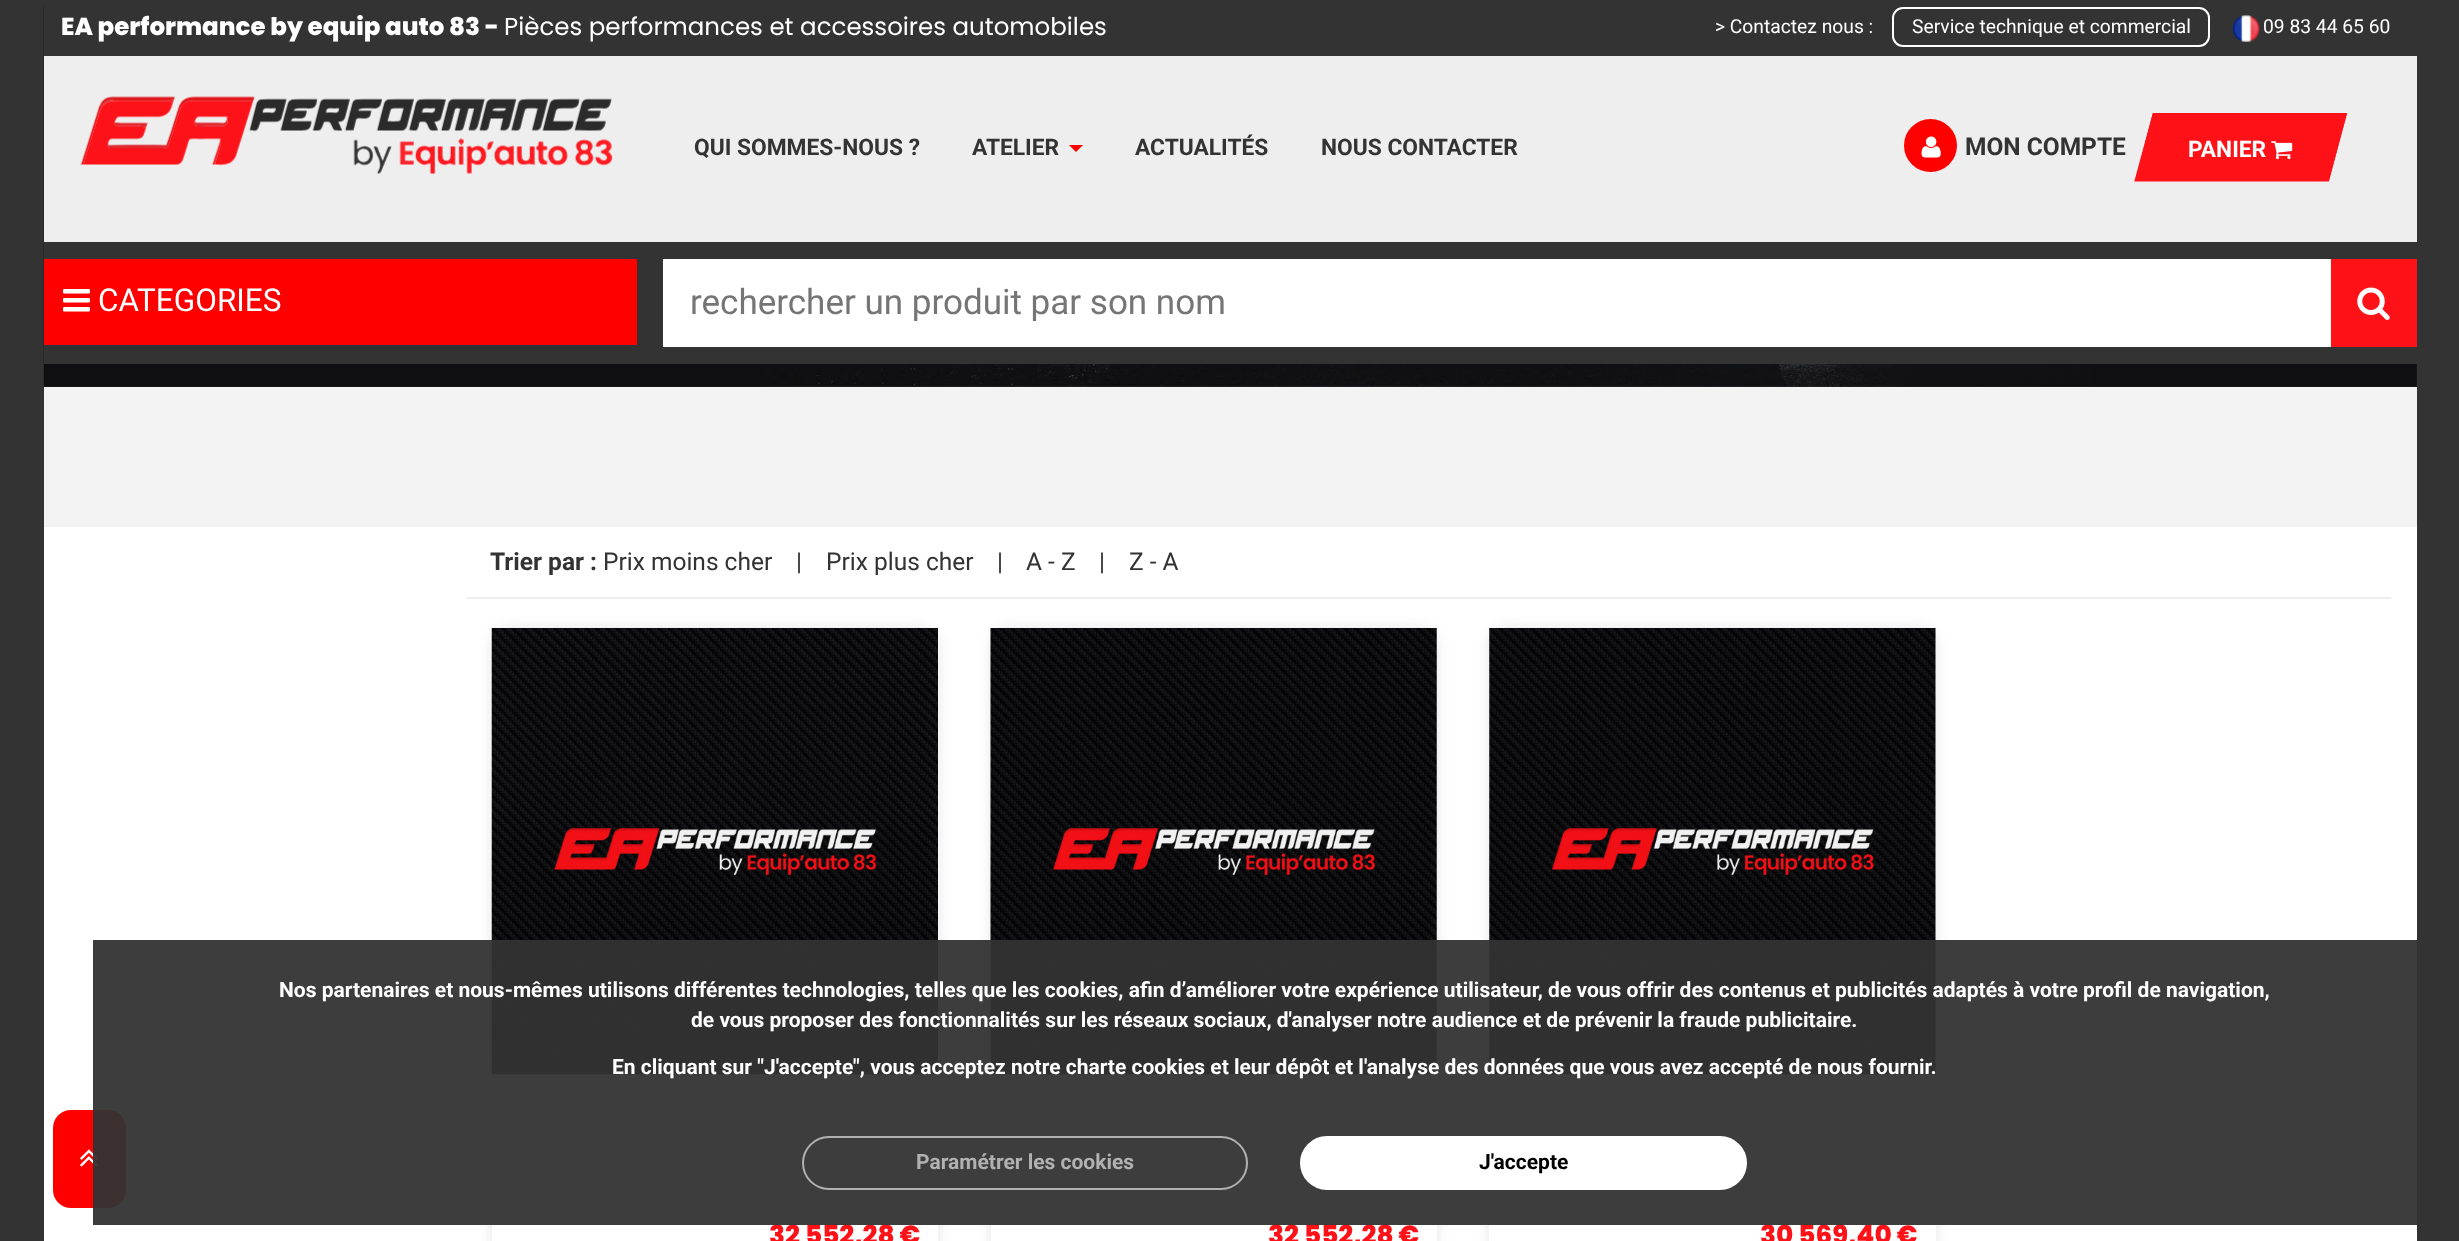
async function draw(canvas) {
  canvas.width = 2459
  canvas.height = 1241
  const ctx = canvas.getContext('2d')
  ctx.miterLimit = 4
  ctx.fontKerning = 'normal'
  async function loadImage(src) {
    const img = new Image()
    img.src = src
    await img.decode()
    return img
  }

  ctx.fillStyle = '#333'
  ctx.fillRect(0, 0, 2459, 1241)
  ctx.fillStyle = '#fff'
  ctx.fillRect(44, 527, 2373, 714)
  ctx.fillStyle = '#282828'
  ctx.fillRect(44, 364, 2373, 23)
  ctx.drawImage(await loadImage('image0.png'), 43, 5, 2374, 382)
  ctx.fillStyle = '#333'
  ctx.fillRect(44, 5, 2373, 51)
  ctx.font = '800 24.5px Poppins'
  ctx.fillStyle = '#fff'
  ctx.fillText('EA performance by equip auto 83 -', 61, 35)
  ctx.font = '24.5px Poppins'
  ctx.fillText('Pièces performances et accessoires automobiles', 504, 35)
  ctx.font = '19.25px Roboto'
  ctx.fillText('> Contactez nous :', 1715, 33)
  ctx.beginPath()
  ctx.roundRect(1893, 8, 316, 38, 10)
  ctx.strokeStyle = '#fff'
  ctx.lineWidth = 2
  ctx.stroke()
  ctx.fillText('Service technique et commercial', 1912, 33)
  ctx.drawImage(await loadImage('image1.png'), 2233, 15, 27, 27)
  ctx.fillText('09 83 44 65 60', 2263, 33)
  ctx.fillStyle = '#eee'
  ctx.fillRect(44, 56, 2373, 186)
  ctx.drawImage(await loadImage('image2.png'), 80, 96, 533, 78)
  ctx.font = 'bold 22.75px Roboto'
  ctx.fillStyle = '#333'
  ctx.fillText('QUI SOMMES-NOUS ?', 694, 155)
  ctx.fillText('ATELIER', 972, 155)
  ctx.fillStyle = '#f00'
  ctx.beginPath()
  ctx.moveTo(1069, 145)
  ctx.lineTo(1083, 145)
  ctx.lineTo(1076, 152)
  ctx.closePath()
  ctx.fill()
  ctx.fillStyle = '#333'
  ctx.fillText('ACTUALITÉS', 1135, 155)
  ctx.fillText('NOUS CONTACTER', 1321, 155)
  ctx.fillStyle = '#f00'
  ctx.beginPath()
  ctx.arc(1930.5, 145.5, 26.5, 0, 2 * Math.PI)
  ctx.fill()
  ctx.drawImage(await loadImage('image3.png'), 1921, 136, 20, 22)
  ctx.font = 'bold 24.5px Roboto'
  ctx.fillStyle = '#333'
  ctx.fillText('MON COMPTE', 1965, 155)
  ctx.fillStyle = '#ff1118'
  ctx.beginPath()
  ctx.moveTo(2153, 113)
  ctx.lineTo(2347, 113)
  ctx.lineTo(2329, 181)
  ctx.lineTo(2135, 181)
  ctx.closePath()
  ctx.fill()
  ctx.beginPath()
  ctx.moveTo(2153.5, 114)
  ctx.lineTo(2346, 114)
  ctx.lineTo(2328, 180.5)
  ctx.lineTo(2135.5, 180.5)
  ctx.closePath()
  ctx.strokeStyle = '#ff1118'
  ctx.lineWidth = 1.8
  ctx.stroke()
  ctx.font = 'bold 22.75px Roboto'
  ctx.fillStyle = '#fff'
  ctx.fillText('PANIER', 2188, 157)
  ctx.drawImage(await loadImage('image4.png'), 2271, 141, 22, 19)
  ctx.fillStyle = '#333'
  ctx.fillRect(44, 242, 2373, 122)
  ctx.fillStyle = '#f00'
  ctx.fillRect(44, 259, 593, 86)
  ctx.drawImage(await loadImage('image5.png'), 63, 289, 27, 23)
  ctx.font = '31.5px Roboto'
  ctx.fillStyle = '#fff'
  ctx.fillText('CATEGORIES', 98, 311)
  ctx.fillRect(663, 259, 1668, 88)
  ctx.font = '35px Roboto'
  ctx.fillStyle = '#757575'
  ctx.fillText('rechercher un produit par son nom', 690, 314)
  ctx.fillStyle = '#ff1118'
  ctx.fillRect(2331, 259, 86, 88)
  ctx.drawImage(await loadImage('image6.png'), 2357, 287, 33, 33)
  ctx.fillStyle = '#f3f3f3'
  ctx.fillRect(44, 387, 2373, 140)
  ctx.fillStyle = '#f00'
  ctx.beginPath()
  ctx.roundRect(53, 1110, 73, 98, 18)
  ctx.fill()
  ctx.drawImage(await loadImage('image7.png'), 80, 1149, 18, 18)
  ctx.fillStyle = '#eee'
  ctx.fillRect(466, 597, 1925, 2)
  ctx.font = 'bold 24.5px Roboto'
  ctx.fillStyle = '#333'
  ctx.fillText('Trier par :', 490, 570)
  ctx.font = '24.5px Roboto'
  ctx.fillText('Prix moins cher', 603, 570)
  ctx.fillText('|', 796, 570)
  ctx.fillText('Prix plus cher', 826, 570)
  ctx.fillText('|', 997, 570)
  ctx.fillText('A - Z', 1026, 570)
  ctx.fillText('|', 1099, 570)
  ctx.fillText('Z - A', 1129, 570)
  ctx.fillStyle = '#0000001a'
  ctx.filter = 'blur(7px)'
  ctx.beginPath()
  ctx.roundRect(492, 628, 446, 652, 18)
  ctx.fill()
  ctx.filter = 'none'
  ctx.fillStyle = '#fff'
  ctx.fillRect(492, 1074, 446, 167)
  ctx.drawImage(await loadImage('image8.png'), 491, 628, 447, 447)
  ctx.fillStyle = '#0000000d'
  ctx.fillRect(492, 828, 446, 247)
  ctx.font = '800 26.25px Poppins'
  ctx.fillStyle = '#ff1118'
  ctx.fillText('32 552,28 €', 769, 1244)
  ctx.fillStyle = '#0000001a'
  ctx.filter = 'blur(7px)'
  ctx.beginPath()
  ctx.roundRect(991, 628, 446, 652, 18)
  ctx.fill()
  ctx.filter = 'none'
  ctx.fillStyle = '#fff'
  ctx.beginPath()
  ctx.roundRect(991, 628, 446, 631, 18)
  ctx.fill()
  ctx.drawImage(await loadImage('image9.png'), 990, 628, 447, 447)
  ctx.fillStyle = '#0000000d'
  ctx.fillRect(991, 628, 446, 447)
  ctx.fillStyle = '#ff1118'
  ctx.fillText('32 552,28 €', 1268, 1244)
  ctx.fillStyle = '#0000001a'
  ctx.filter = 'blur(7px)'
  ctx.beginPath()
  ctx.roundRect(1489, 628, 447, 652, 18)
  ctx.fill()
  ctx.filter = 'none'
  ctx.fillStyle = '#fff'
  ctx.beginPath()
  ctx.roundRect(1489, 628, 447, 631, 18)
  ctx.fill()
  ctx.drawImage(await loadImage('image10.png'), 1489, 628, 447, 447)
  ctx.fillStyle = '#0000000d'
  ctx.fillRect(1489, 628, 447, 447)
  ctx.fillStyle = '#ff1118'
  ctx.fillText('30 569,40 €', 1760, 1244)
  ctx.fillStyle = '#333333f2'
  ctx.fillRect(93, 940, 2324, 285)
  ctx.font = 'bold 21px Roboto'
  ctx.fillStyle = '#fff'
  ctx.fillText('Nos partenaires et nous-mêmes utilisons différentes technologies, telles que les cookies, afin d’améliorer votre expérience utilisateur, de vous offrir des contenus et publicités adaptés à votre profil de navigation,', 279, 997)
  ctx.fillText('de vous proposer des fonctionnalités sur les réseaux sociaux, d\'analyser notre audience et de prévenir la fraude publicitaire.', 691, 1027)
  ctx.fillText('En cliquant sur "J\'accepte", vous acceptez notre charte cookies et leur dépôt et l\'analyse des données que vous avez accepté de nous fournir.', 612, 1074)
  ctx.beginPath()
  ctx.roundRect(803, 1137, 444, 52, 26)
  ctx.strokeStyle = '#b1b1b1'
  ctx.lineWidth = 2
  ctx.stroke()
  ctx.fillStyle = '#b1b1b1'
  ctx.fillText('Paramétrer les cookies', 916, 1169)
  ctx.fillStyle = '#fff'
  ctx.beginPath()
  ctx.roundRect(1301, 1137, 445, 52, 26)
  ctx.fill()
  ctx.strokeStyle = '#fff'
  ctx.stroke()
  ctx.fillStyle = '#000'
  ctx.fillText('J\'accepte', 1479, 1169)
}

draw(document.querySelector('canvas'))
